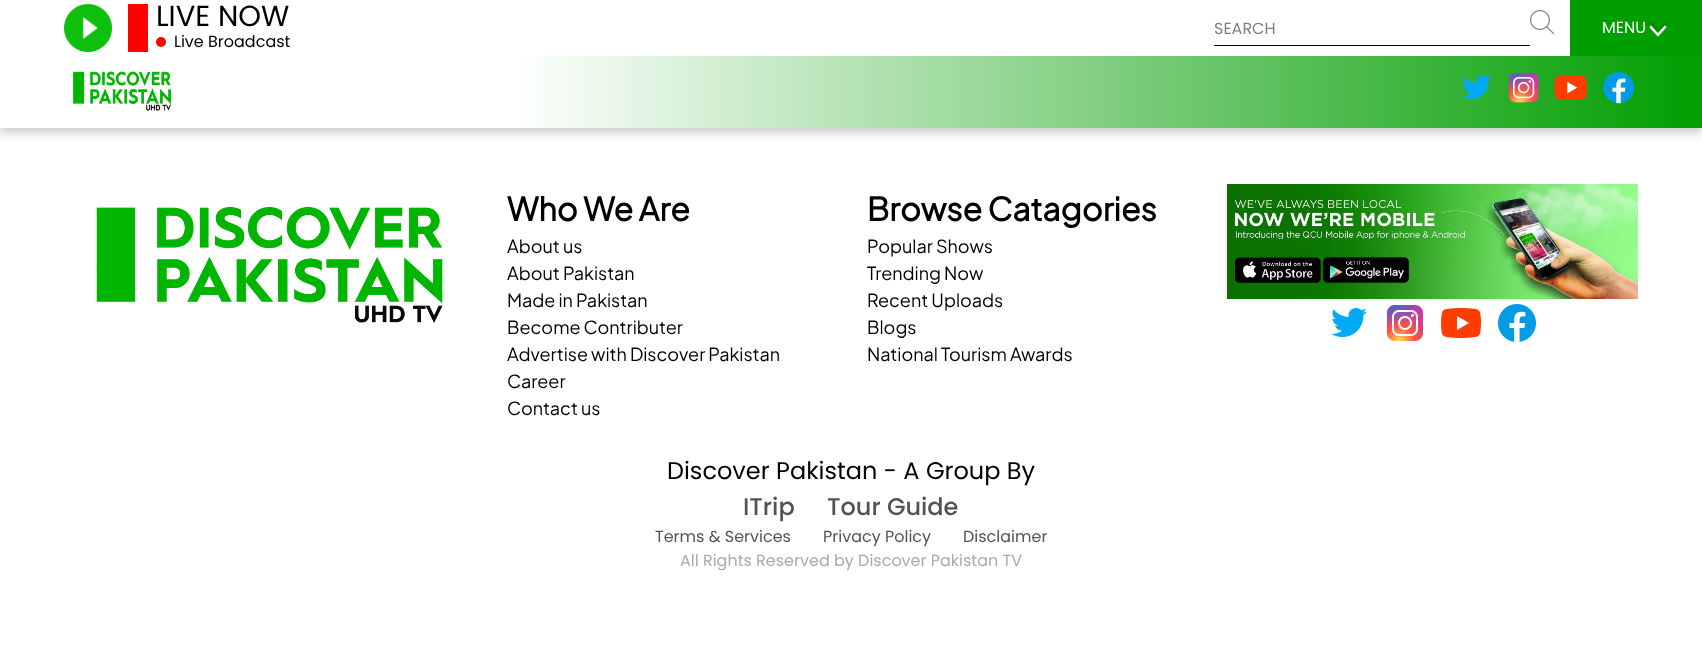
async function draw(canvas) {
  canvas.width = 1702
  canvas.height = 665
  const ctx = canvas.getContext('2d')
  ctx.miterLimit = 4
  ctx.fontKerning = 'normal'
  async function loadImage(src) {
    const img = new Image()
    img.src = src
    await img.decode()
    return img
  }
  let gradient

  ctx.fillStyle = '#fff'
  ctx.fillRect(0, 0, 1702, 665)
  ctx.fillStyle = '#00000033'
  ctx.filter = 'blur(5px)'
  ctx.beginPath()
  ctx.rect(0, 53, 1702, 80)
  ctx.fill()
  ctx.filter = 'none'
  ctx.fillStyle = '#fff'
  ctx.fillRect(0, 45, 1570, 11)
  ctx.drawImage(await loadImage('image0.png'), 64, 4, 48, 48)
  ctx.fillStyle = '#f00'
  ctx.fillRect(128, 4, 20, 48)
  ctx.font = '29px Poppins'
  ctx.fillStyle = '#000'
  ctx.fillText('LIVE NOW', 156, 26)
  ctx.fillStyle = '#f00'
  ctx.beginPath()
  ctx.arc(161, 42, 5, 0, 2 * Math.PI)
  ctx.fill()
  ctx.font = '16px Poppins'
  ctx.fillStyle = '#000'
  ctx.fillText('Live Broadcast', 174, 47)
  ctx.fillRect(1214, 45, 316, 1)
  ctx.fillStyle = '#808080'
  ctx.fillText('SEARCH', 1214, 34)
  ctx.drawImage(await loadImage('image1.png'), 1530, 10, 24, 24)
  ctx.fillStyle = '#009e00'
  ctx.fillRect(1570, 0, 132, 56)
  ctx.fillStyle = '#fff'
  ctx.fillText('MENU', 1602, 33)
  ctx.drawImage(await loadImage('image2.png'), 1648, 21, 19, 16)
  gradient = ctx.createLinearGradient(0, 88, 1702, 88)
  gradient.addColorStop(0.3, '#fff')
  gradient.addColorStop(1, '#009e00')
  ctx.fillStyle = gradient
  ctx.fillRect(0, 56, 1702, 72)
  ctx.drawImage(await loadImage('image3.png'), 73, 71, 98, 40)
  ctx.drawImage(await loadImage('image4.png'), 1462, 75, 30, 25)
  ctx.drawImage(await loadImage('image5.png'), 1508, 72, 31, 31)
  ctx.drawImage(await loadImage('image6.png'), 1554, 75, 34, 25)
  ctx.drawImage(await loadImage('image7.png'), 1603, 72, 32, 32)
  ctx.drawImage(await loadImage('image8.png'), 96, 206, 347, 117)
  ctx.font = 'bold 32px Plus Jakarta Sans'
  ctx.fillStyle = '#000'
  ctx.fillText('Who We Are', 507, 221)
  ctx.font = '18px Plus Jakarta Sans'
  ctx.fillText('About us', 507, 253)
  ctx.fillText('About Pakistan', 507, 280)
  ctx.fillText('Made in Pakistan', 507, 307)
  ctx.fillText('Become Contributer', 507, 334)
  ctx.fillText('Advertise with Discover Pakistan', 507, 361)
  ctx.fillText('Career', 507, 388)
  ctx.fillText('Contact us', 507, 415)
  ctx.font = 'bold 32px Plus Jakarta Sans'
  ctx.fillText('Browse Catagories', 867, 221)
  ctx.font = '18px Plus Jakarta Sans'
  ctx.fillText('Popular Shows', 867, 253)
  ctx.fillText('Trending Now', 867, 280)
  ctx.fillText('Recent Uploads', 867, 307)
  ctx.fillText('Blogs', 867, 334)
  ctx.fillText('National Tourism Awards', 867, 361)
  ctx.drawImage(await loadImage('image9.png'), 1227, 184, 411, 115)
  ctx.drawImage(await loadImage('image10.png'), 1331, 308, 36, 29)
  ctx.drawImage(await loadImage('image11.png'), 1387, 305, 36, 36)
  ctx.drawImage(await loadImage('image12.png'), 1441, 308, 41, 30)
  ctx.drawImage(await loadImage('image13.png'), 1498, 304, 38, 38)
  ctx.font = '24px Poppins'
  ctx.fillText('Discover Pakistan - A Group By', 667, 479)
  ctx.font = '500 24px Poppins'
  ctx.fillStyle = '#535353'
  ctx.fillText('ITrip', 743, 515)
  ctx.fillText('Tour Guide', 827, 515)
  ctx.font = '16px Poppins'
  ctx.fillText('Terms & Services', 655, 542)
  ctx.fillText('Privacy Policy', 823, 542)
  ctx.fillText('Disclaimer', 963, 542)
  ctx.fillStyle = '#abaaaa'
  ctx.fillText('All Rights Reserved by Discover Pakistan TV', 680, 566)
}

draw(document.querySelector('canvas'))
